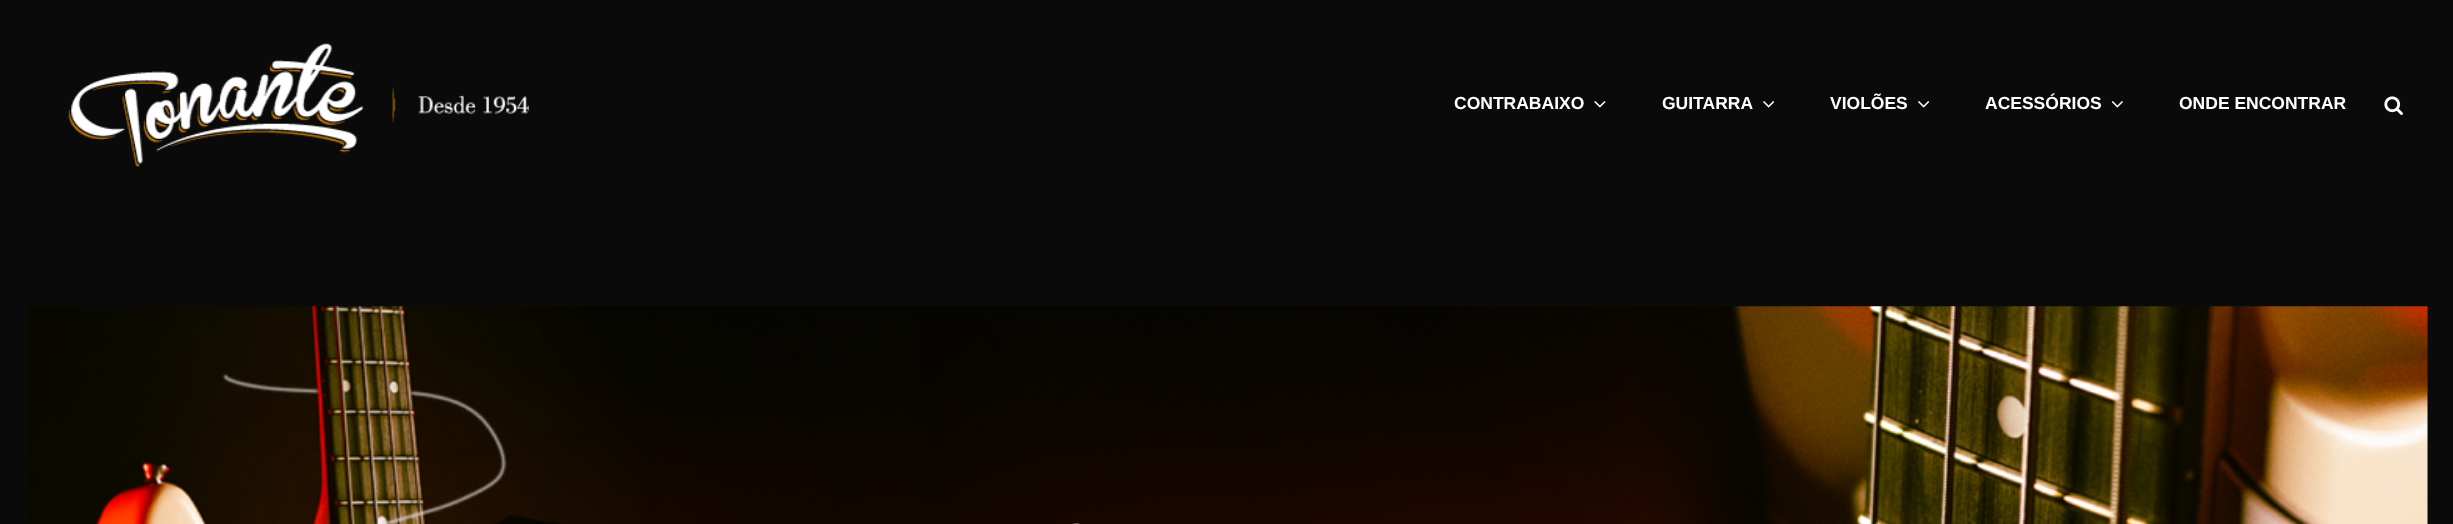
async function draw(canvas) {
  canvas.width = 2453
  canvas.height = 524
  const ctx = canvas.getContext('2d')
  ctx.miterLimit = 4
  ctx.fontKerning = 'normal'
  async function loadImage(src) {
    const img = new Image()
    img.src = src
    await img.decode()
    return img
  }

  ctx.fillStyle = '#0a0a0a'
  ctx.fillRect(0, 0, 2453, 524)
  ctx.drawImage(await loadImage('image0.png'), 68, 43, 461, 124)
  ctx.font = 'bold 17.5px Liberation Sans'
  ctx.fillStyle = '#fff'
  ctx.fillText('CONTRABAIXO', 1454, 109)
  ctx.drawImage(await loadImage('image1.png'), 1594, 101, 12, 7)
  ctx.fillText('GUITARRA', 1662, 109)
  ctx.drawImage(await loadImage('image2.png'), 1763, 101, 12, 7)
  ctx.fillText('VIOLÕES', 1830, 109)
  ctx.drawImage(await loadImage('image2.png'), 1918, 101, 12, 7)
  ctx.fillText('ACESSÓRIOS', 1985, 109)
  ctx.drawImage(await loadImage('image3.png'), 2111, 101, 12, 7)
  ctx.fillText('ONDE ENCONTRAR', 2179, 109)
  ctx.drawImage(await loadImage('image4.png'), 2384, 96, 19, 19)
  ctx.drawImage(await loadImage('image5.png'), 27, 306, 2401, 218)
}

draw(document.querySelector('canvas'))
